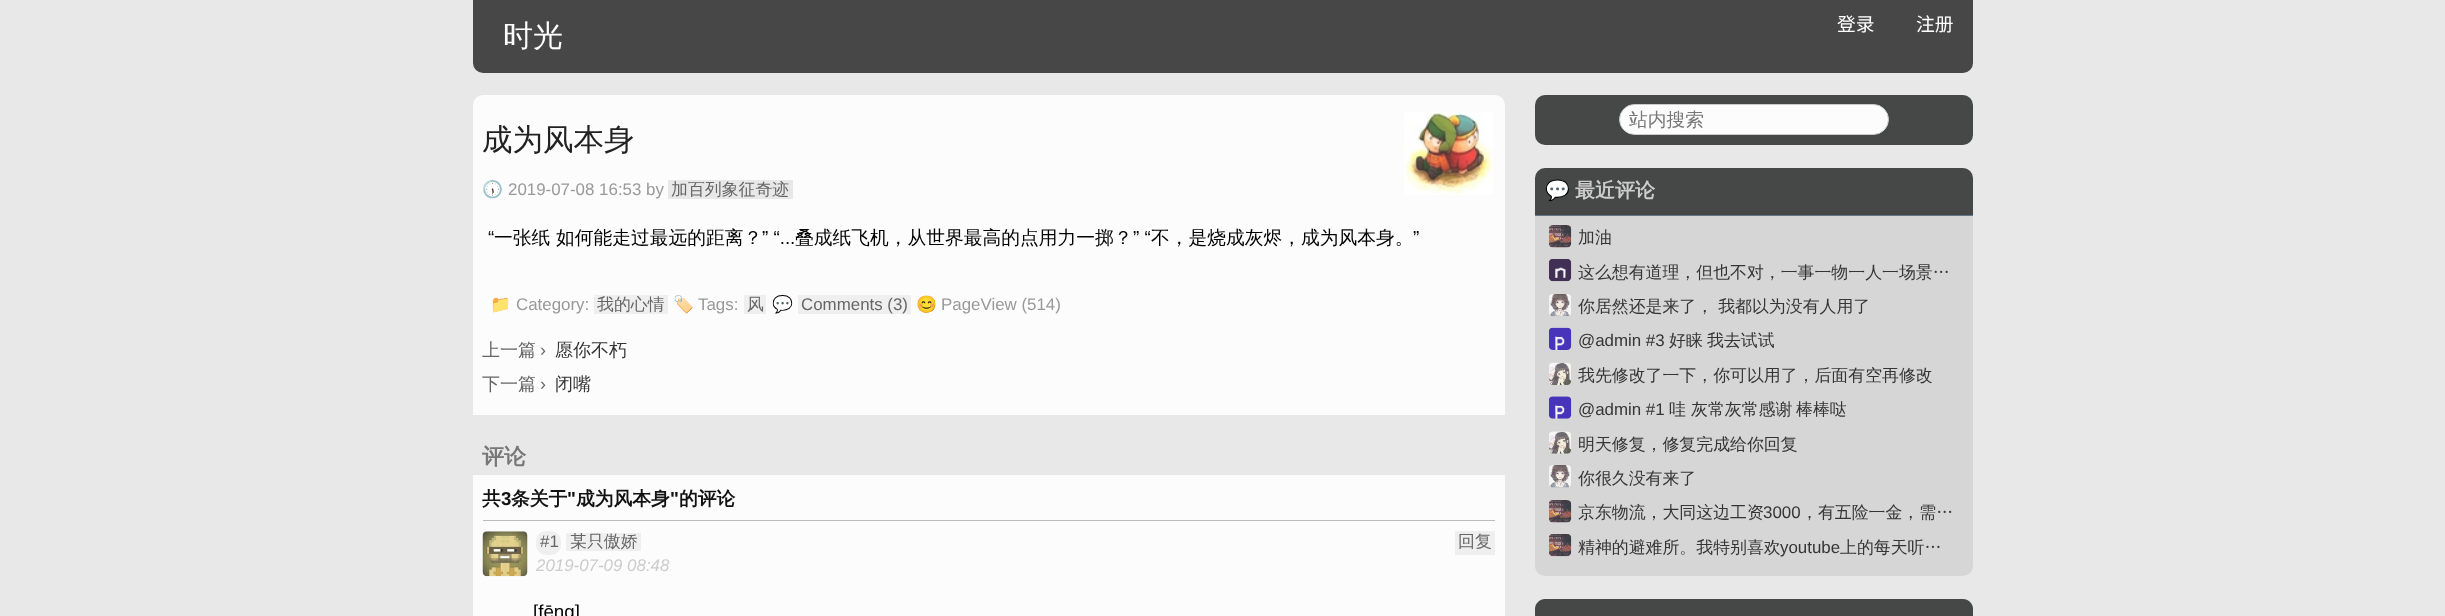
async function draw(canvas) {
  canvas.width = 2445
  canvas.height = 616
  const ctx = canvas.getContext('2d')
  ctx.miterLimit = 4
  ctx.fontKerning = 'normal'
  async function loadImage(src) {
    const img = new Image()
    img.src = src
    await img.decode()
    return img
  }

  ctx.fillStyle = '#e8e8e8'
  ctx.fillRect(0, 0, 2445, 616)
  ctx.fillStyle = '#474747'
  ctx.beginPath()
  ctx.roundRect(473, 0, 1500, 73, [0, 0, 10, 10])
  ctx.fill()
  ctx.font = '500 30px WenQuanYi Zen Hei'
  ctx.fillStyle = '#fff'
  ctx.fillText('时光', 503, 46)
  ctx.font = '18.75px Noto Sans CJK SC'
  ctx.fillText('登录', 1837, 31)
  ctx.fillText('注册', 1916, 31)
  ctx.fillStyle = '#fcfcfc'
  ctx.beginPath()
  ctx.roundRect(473, 95, 1032, 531, 10)
  ctx.fill()
  ctx.font = '500 30.5px WenQuanYi Zen Hei'
  ctx.fillStyle = '#222'
  ctx.fillText('成为风本身', 482, 150)
  ctx.drawImage(await loadImage('image0.png'), 1404, 112, 89, 83)
  ctx.font = '16.9px Noto Color Emoji'
  ctx.fillStyle = '#999'
  ctx.fillText('🕠', 482, 195)
  ctx.font = '16.9px Liberation Sans'
  ctx.fillText('2019-07-08 16:53 by', 508, 195)
  ctx.fillStyle = '#e8e8e8'
  ctx.fillRect(668, 180, 125, 19)
  ctx.font = '500 16.9px WenQuanYi Zen Hei'
  ctx.fillStyle = '#666'
  ctx.fillText('加百列象征奇迹', 671, 195)
  ctx.font = '18.75px Liberation Sans'
  ctx.fillStyle = '#000'
  ctx.fillText('“', 488, 244)
  ctx.font = '500 18.75px WenQuanYi Zen Hei'
  ctx.fillText('一张纸', 494, 244)
  ctx.fillText('如何能走过最远的距离？', 556, 244)
  ctx.font = '18.75px Liberation Sans'
  ctx.fillText('” “...', 762, 244)
  ctx.font = '500 18.75px WenQuanYi Zen Hei'
  ctx.fillText('叠成纸飞机，从世界最高的点用力一掷？', 795, 244)
  ctx.font = '18.75px Liberation Sans'
  ctx.fillText('” “', 1133, 244)
  ctx.font = '500 18.75px WenQuanYi Zen Hei'
  ctx.fillText('不，是烧成灰烬，成为风本身。', 1151, 244)
  ctx.font = '18.75px Liberation Sans'
  ctx.fillText('”', 1413, 244)
  ctx.font = '16.9px Noto Color Emoji'
  ctx.fillStyle = '#999'
  ctx.fillText('📁', 490, 310)
  ctx.font = '16.9px Liberation Sans'
  ctx.fillText('Category:', 516, 310)
  ctx.fillStyle = '#efefef'
  ctx.fillRect(594, 295, 74, 19)
  ctx.font = '500 16.9px WenQuanYi Zen Hei'
  ctx.fillStyle = '#666'
  ctx.fillText('我的心情', 597, 310)
  ctx.font = '16.9px Noto Color Emoji'
  ctx.fillStyle = '#999'
  ctx.fillText('🏷️', 673, 310)
  ctx.font = '16.9px Liberation Sans'
  ctx.fillText('Tags:', 698, 310)
  ctx.fillStyle = '#efefef'
  ctx.fillRect(744, 295, 22, 19)
  ctx.font = '500 16.9px WenQuanYi Zen Hei'
  ctx.fillStyle = '#666'
  ctx.fillText('风', 747, 310)
  ctx.font = '16.9px Noto Color Emoji'
  ctx.fillStyle = '#999'
  ctx.fillText('💬', 772, 310)
  ctx.fillStyle = '#efefef'
  ctx.fillRect(798, 295, 113, 19)
  ctx.font = '16.9px Liberation Sans'
  ctx.fillStyle = '#666'
  ctx.fillText('Comments (3)', 801, 310)
  ctx.font = '16.9px Noto Color Emoji'
  ctx.fillStyle = '#999'
  ctx.fillText('😊', 916, 310)
  ctx.font = '16.9px Liberation Sans'
  ctx.fillText('PageView (514)', 941, 310)
  ctx.font = '500 18px WenQuanYi Zen Hei'
  ctx.fillStyle = '#666'
  ctx.fillText('上一篇', 482, 356)
  ctx.font = '18px Liberation Sans'
  ctx.fillText('›', 540, 356)
  ctx.font = '500 18px WenQuanYi Zen Hei'
  ctx.fillStyle = '#353535'
  ctx.fillText('愿你不朽', 555, 356)
  ctx.fillStyle = '#666'
  ctx.fillText('下一篇', 482, 390)
  ctx.font = '18px Liberation Sans'
  ctx.fillText('›', 540, 390)
  ctx.font = '500 18px WenQuanYi Zen Hei'
  ctx.fillStyle = '#353535'
  ctx.fillText('闭嘴', 555, 390)
  ctx.fillStyle = '#e8e8e8'
  ctx.fillRect(473, 415, 1032, 60)
  ctx.font = 'bold 22px WenQuanYi Zen Hei'
  ctx.fillStyle = '#777'
  ctx.fillText('评论', 482, 464)
  ctx.fillStyle = '#bbb'
  ctx.fillRect(483, 520, 1012, 1)
  ctx.font = 'bold 18.75px WenQuanYi Zen Hei'
  ctx.fillStyle = '#121212'
  ctx.fillText('共', 482, 505)
  ctx.font = 'bold 18.75px Liberation Sans'
  ctx.fillText('3', 501, 505)
  ctx.font = 'bold 18.75px WenQuanYi Zen Hei'
  ctx.fillText('条关于', 511, 505)
  ctx.font = 'bold 18.75px Liberation Sans'
  ctx.fillText('"', 567, 505)
  ctx.font = 'bold 18.75px WenQuanYi Zen Hei'
  ctx.fillText('成为风本身', 576, 505)
  ctx.font = 'bold 18.75px Liberation Sans'
  ctx.fillText('"', 670, 505)
  ctx.font = 'bold 18.75px WenQuanYi Zen Hei'
  ctx.fillText('的评论', 679, 505)
  ctx.drawImage(await loadImage('image1.png'), 482, 531, 46, 46)
  ctx.fillStyle = '#efefef'
  ctx.beginPath()
  ctx.roundRect(536, 531, 25, 24, 10)
  ctx.fill()
  ctx.font = '16.9px Liberation Sans'
  ctx.fillStyle = '#666'
  ctx.fillText('#1', 540, 547)
  ctx.fillStyle = '#efefef'
  ctx.fillRect(566, 533, 75, 18)
  ctx.font = '500 16.9px WenQuanYi Zen Hei'
  ctx.fillStyle = '#666'
  ctx.fillText('某只傲娇', 570, 547)
  ctx.fillStyle = '#efefef'
  ctx.fillRect(1455, 531, 40, 24)
  ctx.fillStyle = '#666'
  ctx.fillText('回复', 1458, 547)
  ctx.font = 'italic 16.9px Liberation Sans'
  ctx.fillStyle = '#ccc'
  ctx.fillText('2019-07-09 08:48', 536, 571)
  ctx.font = '18.75px Liberation Sans'
  ctx.fillStyle = '#000'
  ctx.fillText('[fēng]', 533, 618)
  ctx.fillStyle = '#464747'
  ctx.beginPath()
  ctx.roundRect(1535, 95, 438, 50, 10)
  ctx.fill()
  ctx.fillStyle = '#fcfcfc'
  ctx.beginPath()
  ctx.roundRect(1619.5, 104.5, 269, 30, 15)
  ctx.fill()
  ctx.strokeStyle = '#ccc'
  ctx.stroke()
  ctx.font = '500 18.75px WenQuanYi Zen Hei'
  ctx.fillStyle = '#777'
  ctx.fillText('站内搜索', 1629, 126)
  ctx.fillStyle = '#d6d6d6'
  ctx.beginPath()
  ctx.roundRect(1535, 168, 438, 408, 10)
  ctx.fill()
  ctx.fillStyle = '#464747'
  ctx.beginPath()
  ctx.roundRect(1535, 168, 438, 48, [10, 10, 0, 0])
  ctx.fill()
  ctx.fillStyle = '#678'
  ctx.fillRect(1535, 215, 438, 1)
  ctx.font = 'bold 20px Noto Color Emoji'
  ctx.fillStyle = '#ccc'
  ctx.fillText('💬', 1545, 197)
  ctx.font = 'bold 20px WenQuanYi Zen Hei'
  ctx.fillText('最近评论', 1575, 197)
  ctx.drawImage(await loadImage('image2.png'), 1549, 225, 23, 23)
  ctx.font = '500 16.9px WenQuanYi Zen Hei'
  ctx.fillStyle = '#353535'
  ctx.fillText('加油', 1578, 243)
  ctx.drawImage(await loadImage('image3.png'), 1549, 259, 23, 23)
  ctx.fillText('这么想有道理，但也不对，一事一物一人一场景…', 1578, 278)
  ctx.drawImage(await loadImage('image4.png'), 1549, 294, 22, 23)
  ctx.fillText('你居然还是来了， 我都以为没有人用了', 1578, 312)
  ctx.drawImage(await loadImage('image5.png'), 1549, 327, 23, 23)
  ctx.font = '16.9px Liberation Sans'
  ctx.fillText('@admin #3', 1578, 346)
  ctx.font = '500 16.9px WenQuanYi Zen Hei'
  ctx.fillText('好睐', 1669, 346)
  ctx.fillText('我去试试', 1707, 346)
  ctx.drawImage(await loadImage('image6.png'), 1549, 362, 22, 23)
  ctx.fillText('我先修改了一下，你可以用了，后面有空再修改', 1578, 381)
  ctx.drawImage(await loadImage('image7.png'), 1549, 396, 23, 23)
  ctx.font = '16.9px Liberation Sans'
  ctx.fillText('@admin #1', 1578, 415)
  ctx.font = '500 16.9px WenQuanYi Zen Hei'
  ctx.fillText('哇', 1669, 415)
  ctx.fillText('灰常灰常感谢', 1691, 415)
  ctx.fillText('棒棒哒', 1796, 415)
  ctx.drawImage(await loadImage('image8.png'), 1549, 431, 22, 23)
  ctx.fillText('明天修复，修复完成给你回复', 1578, 450)
  ctx.drawImage(await loadImage('image9.png'), 1549, 465, 22, 23)
  ctx.fillText('你很久没有来了', 1578, 484)
  ctx.drawImage(await loadImage('image10.png'), 1549, 500, 23, 23)
  ctx.fillText('京东物流，大同这边工资', 1578, 518)
  ctx.font = '16.9px Liberation Sans'
  ctx.fillText('3000', 1763, 518)
  ctx.font = '500 16.9px WenQuanYi Zen Hei'
  ctx.fillText('，有五险一金，需…', 1801, 518)
  ctx.drawImage(await loadImage('image11.png'), 1549, 534, 23, 23)
  ctx.fillText('精神的避难所。我特别喜欢', 1578, 553)
  ctx.font = '16.9px Liberation Sans'
  ctx.fillText('youtube', 1780, 553)
  ctx.font = '500 16.9px WenQuanYi Zen Hei'
  ctx.fillText('上的每天听…', 1840, 553)
  ctx.fillStyle = '#464747'
  ctx.beginPath()
  ctx.moveTo(1545, 599)
  ctx.lineTo(1963, 599)
  ctx.bezierCurveTo(1968.5, 599, 1973, 603.5, 1973, 609)
  ctx.lineTo(1973, 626)
  ctx.lineTo(1535, 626)
  ctx.lineTo(1535, 609)
  ctx.bezierCurveTo(1535, 603.5, 1539.5, 599, 1545, 599)
  ctx.closePath()
  ctx.fill()
}

draw(document.querySelector('canvas'))
